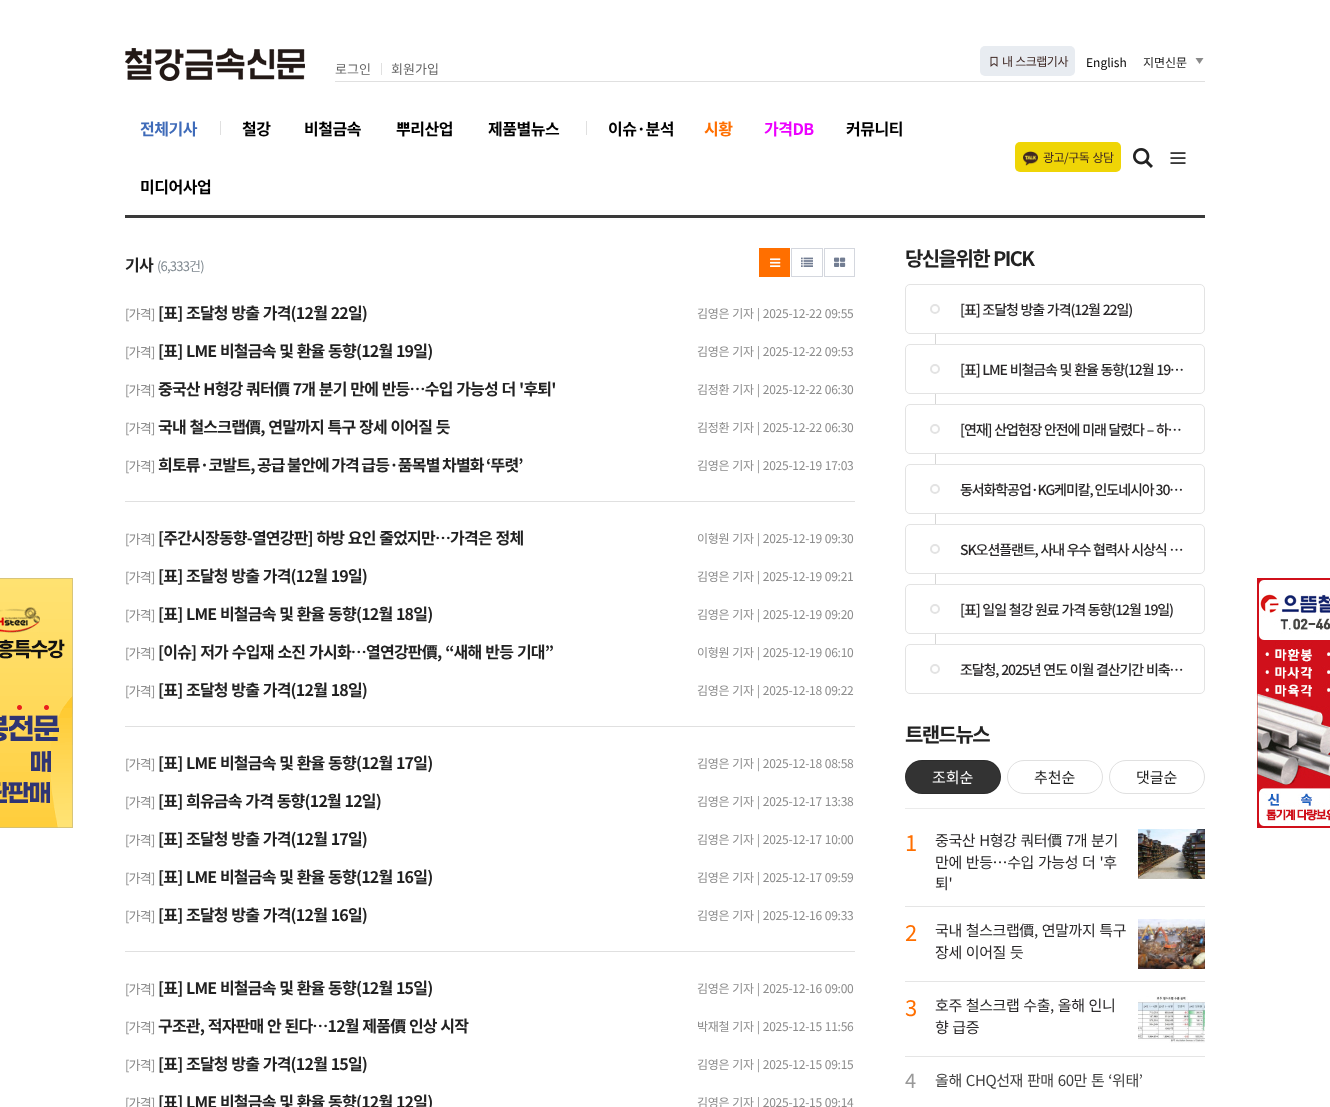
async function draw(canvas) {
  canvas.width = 1330
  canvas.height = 1107
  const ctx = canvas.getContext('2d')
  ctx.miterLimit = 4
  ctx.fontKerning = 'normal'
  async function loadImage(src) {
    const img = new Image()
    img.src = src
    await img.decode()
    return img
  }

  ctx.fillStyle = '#fff'
  ctx.fillRect(0, 0, 1330, 1107)
  ctx.drawImage(await loadImage('image0.png'), 125, 48, 180, 33)
  ctx.fillStyle = '#e0e0e0'
  ctx.fillRect(335, 81, 870, 1)
  ctx.font = '13px Noto Sans KR'
  ctx.fillStyle = '#666'
  ctx.fillText('로그인', 335, 74)
  ctx.fillStyle = '#e0e0e0'
  ctx.fillRect(381, 63, 1, 12)
  ctx.fillStyle = '#666'
  ctx.fillText('회원가입', 391, 74)
  ctx.fillStyle = '#e8ecf1'
  ctx.beginPath()
  ctx.roundRect(980, 46, 95, 30, 5)
  ctx.fill()
  ctx.drawImage(await loadImage('image1.png'), 990, 56, 8, 11)
  ctx.letterSpacing = '-0.5px'
  ctx.wordSpacing = '0.5px'
  ctx.font = '12px Noto Sans KR'
  ctx.fillStyle = '#3e2723'
  ctx.fillText('내 스크랩기사', 1002, 66)
  ctx.letterSpacing = '0px'
  ctx.wordSpacing = '0px'
  ctx.fillStyle = '#000'
  ctx.fillText('English', 1086, 67)
  ctx.fillStyle = '#8a8a8a'
  ctx.beginPath()
  ctx.moveTo(1195.5, 58)
  ctx.lineTo(1203.5, 58)
  ctx.lineTo(1199.5, 64)
  ctx.closePath()
  ctx.fill()
  ctx.fillStyle = '#222'
  ctx.fillText('지면신문', 1143, 67)
  ctx.fillStyle = '#3a3a3a'
  ctx.fillRect(125, 215, 1080, 3)
  ctx.letterSpacing = '-0.5px'
  ctx.font = 'bold 16px Noto Sans KR'
  ctx.fillStyle = '#3f6bb9'
  ctx.fillText('전체기사', 140, 135)
  ctx.fillStyle = '#e0e0e0'
  ctx.fillRect(220, 121, 1, 14)
  ctx.fillStyle = '#000'
  ctx.fillText('철강', 242, 135)
  ctx.fillText('비철금속', 304, 135)
  ctx.fillText('뿌리산업', 396, 135)
  ctx.fillText('제품별뉴스', 488, 135)
  ctx.fillStyle = '#e0e0e0'
  ctx.fillRect(586, 121, 1, 14)
  ctx.fillStyle = '#000'
  ctx.fillText('이슈·분석', 608, 135)
  ctx.fillStyle = '#ff6f00'
  ctx.fillText('시황', 704, 135)
  ctx.fillStyle = '#ec00ff'
  ctx.fillText('가격DB', 764, 135)
  ctx.fillStyle = '#000'
  ctx.fillText('커뮤니티', 846, 135)
  ctx.fillText('미디어사업', 140, 193)
  ctx.fillStyle = '#efd506'
  ctx.beginPath()
  ctx.roundRect(1015, 142, 106, 30, 5)
  ctx.fill()
  ctx.drawImage(await loadImage('image2.png'), 1023, 151, 15, 15)
  ctx.wordSpacing = '1px'
  ctx.font = '12px Noto Sans KR'
  ctx.fillStyle = '#3e2723'
  ctx.fillText('광고/구독 상담', 1043, 162)
  ctx.drawImage(await loadImage('image3.png'), 1133, 148, 20, 20)
  ctx.drawImage(await loadImage('image4.png'), 1170, 152, 16, 12)
  ctx.letterSpacing = '-0.8px'
  ctx.wordSpacing = '0px'
  ctx.font = 'bold 16px Noto Sans KR'
  ctx.fillStyle = '#222'
  ctx.fillText('기사', 125, 271)
  ctx.font = '13px Noto Sans KR'
  ctx.fillStyle = '#818a91'
  ctx.fillText('(6,333건)', 157, 271)
  ctx.fillStyle = '#ff6f00'
  ctx.fillRect(759, 248, 31, 29)
  ctx.drawImage(await loadImage('image5.png'), 770, 258, 11, 9)
  ctx.strokeStyle = '#d4d7de'
  ctx.strokeRect(791.5, 248.5, 31, 28)
  ctx.drawImage(await loadImage('image6.png'), 801, 257, 12, 10)
  ctx.strokeRect(824.5, 248.5, 30, 28)
  ctx.drawImage(await loadImage('image7.png'), 834, 257, 12, 10)
  ctx.fillStyle = '#8c8c8c'
  ctx.fillText('[가격]', 125, 319)
  ctx.wordSpacing = '0.75px'
  ctx.font = 'bold 16px Noto Sans KR'
  ctx.fillStyle = '#222'
  ctx.fillText('[표] 조달청 방출 가격(12월 22일)', 158, 319)
  ctx.letterSpacing = '-0.25px'
  ctx.wordSpacing = '0.5px'
  ctx.font = '12px Noto Sans KR'
  ctx.fillStyle = '#8c8c8c'
  ctx.fillText('김영은 기자 | 2025-12-22 09:55', 697, 318)
  ctx.letterSpacing = '-0.8px'
  ctx.wordSpacing = '0px'
  ctx.font = '13px Noto Sans KR'
  ctx.fillText('[가격]', 125, 357)
  ctx.wordSpacing = '0.75px'
  ctx.font = 'bold 16px Noto Sans KR'
  ctx.fillStyle = '#222'
  ctx.fillText('[표] LME 비철금속 및 환율 동향(12월 19일)', 158, 357)
  ctx.letterSpacing = '-0.25px'
  ctx.wordSpacing = '0.5px'
  ctx.font = '12px Noto Sans KR'
  ctx.fillStyle = '#8c8c8c'
  ctx.fillText('김영은 기자 | 2025-12-22 09:53', 697, 356)
  ctx.letterSpacing = '-0.8px'
  ctx.wordSpacing = '0px'
  ctx.font = '13px Noto Sans KR'
  ctx.fillText('[가격]', 125, 395)
  ctx.wordSpacing = '0.75px'
  ctx.font = 'bold 16px Noto Sans KR'
  ctx.fillStyle = '#222'
  ctx.fillText('중국산 H형강 쿼터價 7개 분기 만에 반등…수입 가능성 더 \'후퇴\'', 158, 395)
  ctx.letterSpacing = '-0.25px'
  ctx.wordSpacing = '0.5px'
  ctx.font = '12px Noto Sans KR'
  ctx.fillStyle = '#8c8c8c'
  ctx.fillText('김정환 기자 | 2025-12-22 06:30', 697, 394)
  ctx.letterSpacing = '-0.8px'
  ctx.wordSpacing = '0px'
  ctx.font = '13px Noto Sans KR'
  ctx.fillText('[가격]', 125, 433)
  ctx.wordSpacing = '0.75px'
  ctx.font = 'bold 16px Noto Sans KR'
  ctx.fillStyle = '#222'
  ctx.fillText('국내 철스크랩價, 연말까지 특구 장세 이어질 듯', 158, 433)
  ctx.letterSpacing = '-0.25px'
  ctx.wordSpacing = '0.5px'
  ctx.font = '12px Noto Sans KR'
  ctx.fillStyle = '#8c8c8c'
  ctx.fillText('김정환 기자 | 2025-12-22 06:30', 697, 432)
  ctx.letterSpacing = '-0.8px'
  ctx.wordSpacing = '0px'
  ctx.font = '13px Noto Sans KR'
  ctx.fillText('[가격]', 125, 471)
  ctx.wordSpacing = '-0.5px'
  ctx.font = 'bold 16px Noto Sans KR'
  ctx.fillStyle = '#222'
  ctx.fillText('희토류·코발트, 공급 불안에 가격 급등·품목별 차별화 ‘뚜렷’', 158, 471)
  ctx.letterSpacing = '-0.25px'
  ctx.wordSpacing = '0.5px'
  ctx.font = '12px Noto Sans KR'
  ctx.fillStyle = '#8c8c8c'
  ctx.fillText('김영은 기자 | 2025-12-19 17:03', 697, 470)
  ctx.fillStyle = '#e0e0e0'
  ctx.fillRect(125, 501, 730, 1)
  ctx.letterSpacing = '-0.8px'
  ctx.wordSpacing = '0px'
  ctx.font = '13px Noto Sans KR'
  ctx.fillStyle = '#8c8c8c'
  ctx.fillText('[가격]', 125, 544)
  ctx.wordSpacing = '0.75px'
  ctx.font = 'bold 16px Noto Sans KR'
  ctx.fillStyle = '#222'
  ctx.fillText('[주간시장동향-열연강판] 하방 요인 줄었지만…가격은 정체', 158, 544)
  ctx.letterSpacing = '-0.25px'
  ctx.wordSpacing = '0.5px'
  ctx.font = '12px Noto Sans KR'
  ctx.fillStyle = '#8c8c8c'
  ctx.fillText('이형원 기자 | 2025-12-19 09:30', 697, 543)
  ctx.letterSpacing = '-0.8px'
  ctx.wordSpacing = '0px'
  ctx.font = '13px Noto Sans KR'
  ctx.fillText('[가격]', 125, 582)
  ctx.wordSpacing = '0.75px'
  ctx.font = 'bold 16px Noto Sans KR'
  ctx.fillStyle = '#222'
  ctx.fillText('[표] 조달청 방출 가격(12월 19일)', 158, 582)
  ctx.letterSpacing = '-0.25px'
  ctx.wordSpacing = '0.5px'
  ctx.font = '12px Noto Sans KR'
  ctx.fillStyle = '#8c8c8c'
  ctx.fillText('김영은 기자 | 2025-12-19 09:21', 697, 581)
  ctx.letterSpacing = '-0.8px'
  ctx.wordSpacing = '0px'
  ctx.font = '13px Noto Sans KR'
  ctx.fillText('[가격]', 125, 620)
  ctx.wordSpacing = '0.75px'
  ctx.font = 'bold 16px Noto Sans KR'
  ctx.fillStyle = '#222'
  ctx.fillText('[표] LME 비철금속 및 환율 동향(12월 18일)', 158, 620)
  ctx.letterSpacing = '-0.25px'
  ctx.wordSpacing = '0.5px'
  ctx.font = '12px Noto Sans KR'
  ctx.fillStyle = '#8c8c8c'
  ctx.fillText('김영은 기자 | 2025-12-19 09:20', 697, 619)
  ctx.letterSpacing = '-0.8px'
  ctx.wordSpacing = '0px'
  ctx.font = '13px Noto Sans KR'
  ctx.fillText('[가격]', 125, 658)
  ctx.wordSpacing = '1px'
  ctx.font = 'bold 16px Noto Sans KR'
  ctx.fillStyle = '#222'
  ctx.fillText('[이슈] 저가 수입재 소진 가시화…열연강판價, “새해 반등 기대”', 158, 658)
  ctx.letterSpacing = '-0.25px'
  ctx.wordSpacing = '0.5px'
  ctx.font = '12px Noto Sans KR'
  ctx.fillStyle = '#8c8c8c'
  ctx.fillText('이형원 기자 | 2025-12-19 06:10', 697, 657)
  ctx.letterSpacing = '-0.8px'
  ctx.wordSpacing = '0px'
  ctx.font = '13px Noto Sans KR'
  ctx.fillText('[가격]', 125, 696)
  ctx.wordSpacing = '0.75px'
  ctx.font = 'bold 16px Noto Sans KR'
  ctx.fillStyle = '#222'
  ctx.fillText('[표] 조달청 방출 가격(12월 18일)', 158, 696)
  ctx.letterSpacing = '-0.25px'
  ctx.wordSpacing = '0.5px'
  ctx.font = '12px Noto Sans KR'
  ctx.fillStyle = '#8c8c8c'
  ctx.fillText('김영은 기자 | 2025-12-18 09:22', 697, 695)
  ctx.fillStyle = '#e0e0e0'
  ctx.fillRect(125, 726, 730, 1)
  ctx.letterSpacing = '-0.8px'
  ctx.wordSpacing = '0px'
  ctx.font = '13px Noto Sans KR'
  ctx.fillStyle = '#8c8c8c'
  ctx.fillText('[가격]', 125, 769)
  ctx.wordSpacing = '0.75px'
  ctx.font = 'bold 16px Noto Sans KR'
  ctx.fillStyle = '#222'
  ctx.fillText('[표] LME 비철금속 및 환율 동향(12월 17일)', 158, 769)
  ctx.letterSpacing = '-0.25px'
  ctx.wordSpacing = '0.5px'
  ctx.font = '12px Noto Sans KR'
  ctx.fillStyle = '#8c8c8c'
  ctx.fillText('김영은 기자 | 2025-12-18 08:58', 697, 768)
  ctx.letterSpacing = '-0.8px'
  ctx.wordSpacing = '0px'
  ctx.font = '13px Noto Sans KR'
  ctx.fillText('[가격]', 125, 807)
  ctx.wordSpacing = '0.75px'
  ctx.font = 'bold 16px Noto Sans KR'
  ctx.fillStyle = '#222'
  ctx.fillText('[표] 희유금속 가격 동향(12월 12일)', 158, 807)
  ctx.letterSpacing = '-0.25px'
  ctx.wordSpacing = '0.5px'
  ctx.font = '12px Noto Sans KR'
  ctx.fillStyle = '#8c8c8c'
  ctx.fillText('김영은 기자 | 2025-12-17 13:38', 697, 806)
  ctx.letterSpacing = '-0.8px'
  ctx.wordSpacing = '0px'
  ctx.font = '13px Noto Sans KR'
  ctx.fillText('[가격]', 125, 845)
  ctx.wordSpacing = '0.75px'
  ctx.font = 'bold 16px Noto Sans KR'
  ctx.fillStyle = '#222'
  ctx.fillText('[표] 조달청 방출 가격(12월 17일)', 158, 845)
  ctx.letterSpacing = '-0.25px'
  ctx.wordSpacing = '0.5px'
  ctx.font = '12px Noto Sans KR'
  ctx.fillStyle = '#8c8c8c'
  ctx.fillText('김영은 기자 | 2025-12-17 10:00', 697, 844)
  ctx.letterSpacing = '-0.8px'
  ctx.wordSpacing = '0px'
  ctx.font = '13px Noto Sans KR'
  ctx.fillText('[가격]', 125, 883)
  ctx.wordSpacing = '0.75px'
  ctx.font = 'bold 16px Noto Sans KR'
  ctx.fillStyle = '#222'
  ctx.fillText('[표] LME 비철금속 및 환율 동향(12월 16일)', 158, 883)
  ctx.letterSpacing = '-0.25px'
  ctx.wordSpacing = '0.5px'
  ctx.font = '12px Noto Sans KR'
  ctx.fillStyle = '#8c8c8c'
  ctx.fillText('김영은 기자 | 2025-12-17 09:59', 697, 882)
  ctx.letterSpacing = '-0.8px'
  ctx.wordSpacing = '0px'
  ctx.font = '13px Noto Sans KR'
  ctx.fillText('[가격]', 125, 921)
  ctx.wordSpacing = '0.75px'
  ctx.font = 'bold 16px Noto Sans KR'
  ctx.fillStyle = '#222'
  ctx.fillText('[표] 조달청 방출 가격(12월 16일)', 158, 921)
  ctx.letterSpacing = '-0.25px'
  ctx.wordSpacing = '0.5px'
  ctx.font = '12px Noto Sans KR'
  ctx.fillStyle = '#8c8c8c'
  ctx.fillText('김영은 기자 | 2025-12-16 09:33', 697, 920)
  ctx.fillStyle = '#e0e0e0'
  ctx.fillRect(125, 951, 730, 1)
  ctx.letterSpacing = '-0.8px'
  ctx.wordSpacing = '0px'
  ctx.font = '13px Noto Sans KR'
  ctx.fillStyle = '#8c8c8c'
  ctx.fillText('[가격]', 125, 994)
  ctx.wordSpacing = '0.75px'
  ctx.font = 'bold 16px Noto Sans KR'
  ctx.fillStyle = '#222'
  ctx.fillText('[표] LME 비철금속 및 환율 동향(12월 15일)', 158, 994)
  ctx.letterSpacing = '-0.25px'
  ctx.wordSpacing = '0.5px'
  ctx.font = '12px Noto Sans KR'
  ctx.fillStyle = '#8c8c8c'
  ctx.fillText('김영은 기자 | 2025-12-16 09:00', 697, 993)
  ctx.letterSpacing = '-0.8px'
  ctx.wordSpacing = '0px'
  ctx.font = '13px Noto Sans KR'
  ctx.fillText('[가격]', 125, 1032)
  ctx.wordSpacing = '0.75px'
  ctx.font = 'bold 16px Noto Sans KR'
  ctx.fillStyle = '#222'
  ctx.fillText('구조관, 적자판매 안 된다…12월 제품價 인상 시작', 158, 1032)
  ctx.letterSpacing = '-0.25px'
  ctx.wordSpacing = '0.5px'
  ctx.font = '12px Noto Sans KR'
  ctx.fillStyle = '#8c8c8c'
  ctx.fillText('박재철 기자 | 2025-12-15 11:56', 697, 1031)
  ctx.letterSpacing = '-0.8px'
  ctx.wordSpacing = '0px'
  ctx.font = '13px Noto Sans KR'
  ctx.fillText('[가격]', 125, 1070)
  ctx.wordSpacing = '0.75px'
  ctx.font = 'bold 16px Noto Sans KR'
  ctx.fillStyle = '#222'
  ctx.fillText('[표] 조달청 방출 가격(12월 15일)', 158, 1070)
  ctx.letterSpacing = '-0.25px'
  ctx.wordSpacing = '0.5px'
  ctx.font = '12px Noto Sans KR'
  ctx.fillStyle = '#8c8c8c'
  ctx.fillText('김영은 기자 | 2025-12-15 09:15', 697, 1069)
  ctx.letterSpacing = '-0.8px'
  ctx.wordSpacing = '0px'
  ctx.font = '13px Noto Sans KR'
  ctx.fillText('[가격]', 125, 1108)
  ctx.wordSpacing = '0.75px'
  ctx.font = 'bold 16px Noto Sans KR'
  ctx.fillStyle = '#222'
  ctx.fillText('[표] LME 비철금속 및 환율 동향(12월 12일)', 158, 1108)
  ctx.letterSpacing = '-0.25px'
  ctx.wordSpacing = '0.5px'
  ctx.font = '12px Noto Sans KR'
  ctx.fillStyle = '#8c8c8c'
  ctx.fillText('김영은 기자 | 2025-12-15 09:14', 697, 1107)
  ctx.letterSpacing = '-1.6px'
  ctx.wordSpacing = '1px'
  ctx.font = 'bold 20px Noto Sans KR'
  ctx.fillStyle = '#222'
  ctx.fillText('당신을위한 PICK', 905, 266)
  ctx.beginPath()
  ctx.roundRect(905.5, 284.5, 299, 49, 4.5)
  ctx.strokeStyle = '#e3e3e3'
  ctx.stroke()
  ctx.beginPath()
  ctx.arc(935, 309, 4, 0, 2 * Math.PI)
  ctx.lineWidth = 2
  ctx.stroke()
  ctx.letterSpacing = '-1.1px'
  ctx.wordSpacing = '0.75px'
  ctx.font = '500 14px Noto Sans KR'
  ctx.fillStyle = '#292728'
  ctx.fillText('[표] 조달청 방출 가격(12월 22일)', 960, 315)
  ctx.fillStyle = '#d6d6d6'
  ctx.fillRect(935, 334, 1, 310)
  ctx.fillStyle = '#fff'
  ctx.beginPath()
  ctx.roundRect(905.5, 344.5, 299, 49, 4.5)
  ctx.fill()
  ctx.lineWidth = 1
  ctx.stroke()
  ctx.beginPath()
  ctx.arc(935, 369, 4, 0, 2 * Math.PI)
  ctx.lineWidth = 2
  ctx.stroke()
  ctx.fillStyle = '#292728'
  ctx.fillText('[표] LME 비철금속 및 환율 동향(12월 19…', 960, 375)
  ctx.fillStyle = '#fff'
  ctx.beginPath()
  ctx.roundRect(905.5, 404.5, 299, 49, 4.5)
  ctx.fill()
  ctx.lineWidth = 1
  ctx.stroke()
  ctx.beginPath()
  ctx.arc(935, 429, 4, 0, 2 * Math.PI)
  ctx.lineWidth = 2
  ctx.stroke()
  ctx.fillStyle = '#292728'
  ctx.fillText('[연재] 산업현장 안전에 미래 달렸다 – 하…', 960, 435)
  ctx.fillStyle = '#fff'
  ctx.beginPath()
  ctx.roundRect(905.5, 464.5, 299, 49, 4.5)
  ctx.fill()
  ctx.lineWidth = 1
  ctx.stroke()
  ctx.beginPath()
  ctx.arc(935, 489, 4, 0, 2 * Math.PI)
  ctx.lineWidth = 2
  ctx.stroke()
  ctx.wordSpacing = '0px'
  ctx.fillStyle = '#292728'
  ctx.fillText('동서화학공업·KG케미칼, 인도네시아 30…', 960, 495)
  ctx.fillStyle = '#fff'
  ctx.beginPath()
  ctx.roundRect(905.5, 524.5, 299, 49, 4.5)
  ctx.fill()
  ctx.lineWidth = 1
  ctx.stroke()
  ctx.beginPath()
  ctx.arc(935, 549, 4, 0, 2 * Math.PI)
  ctx.lineWidth = 2
  ctx.stroke()
  ctx.wordSpacing = '0.75px'
  ctx.fillStyle = '#292728'
  ctx.fillText('SK오션플랜트, 사내 우수 협력사 시상식 …', 960, 555)
  ctx.fillStyle = '#fff'
  ctx.beginPath()
  ctx.roundRect(905.5, 584.5, 299, 49, 4.5)
  ctx.fill()
  ctx.lineWidth = 1
  ctx.stroke()
  ctx.beginPath()
  ctx.arc(935, 609, 4, 0, 2 * Math.PI)
  ctx.lineWidth = 2
  ctx.stroke()
  ctx.fillStyle = '#292728'
  ctx.fillText('[표] 일일 철강 원료 가격 동향(12월 19일)', 960, 615)
  ctx.beginPath()
  ctx.roundRect(905.5, 644.5, 299, 49, 4.5)
  ctx.lineWidth = 1
  ctx.stroke()
  ctx.beginPath()
  ctx.arc(935, 669, 4, 0, 2 * Math.PI)
  ctx.lineWidth = 2
  ctx.stroke()
  ctx.fillText('조달청, 2025년 연도 이월 결산기간 비축…', 960, 675)
  ctx.letterSpacing = '-1.6px'
  ctx.wordSpacing = '0px'
  ctx.font = 'bold 20px Noto Sans KR'
  ctx.fillStyle = '#222'
  ctx.fillText('트랜드뉴스', 905, 742)
  ctx.fillStyle = '#ebebeb'
  ctx.fillRect(905, 808, 300, 1)
  ctx.fillStyle = '#333'
  ctx.beginPath()
  ctx.roundRect(905, 760, 96, 34, 17)
  ctx.fill()
  ctx.beginPath()
  ctx.roundRect(905.5, 760.5, 95, 33, 16.5)
  ctx.strokeStyle = '#0000001f'
  ctx.lineWidth = 1
  ctx.stroke()
  ctx.letterSpacing = '0px'
  ctx.font = '15px Noto Sans KR'
  ctx.fillStyle = '#fefefe'
  ctx.fillText('조회순', 932, 783)
  ctx.beginPath()
  ctx.roundRect(1007.5, 760.5, 95, 33, 16.5)
  ctx.strokeStyle = '#e0e0e0'
  ctx.stroke()
  ctx.fillStyle = '#222'
  ctx.fillText('추천순', 1034, 783)
  ctx.beginPath()
  ctx.roundRect(1109.5, 760.5, 95, 33, 16.5)
  ctx.stroke()
  ctx.fillText('댓글순', 1136, 783)
  ctx.letterSpacing = '-0.4px'
  ctx.font = '22px Noto Sans KR'
  ctx.fillStyle = '#ff6f00'
  ctx.fillText('1', 905, 851)
  ctx.wordSpacing = '1px'
  ctx.font = '15px Noto Sans KR'
  ctx.fillStyle = '#292728'
  ctx.fillText('중국산 H형강 쿼터價 7개 분기', 935, 846)
  ctx.fillText('만에 반등…수입 가능성 더 \'후', 935, 868)
  ctx.wordSpacing = '0px'
  ctx.fillText('퇴\'', 935, 889)
  ctx.drawImage(await loadImage('image8.png'), 1138, 829, 67, 50)
  ctx.fillStyle = '#e5e5e5'
  ctx.fillRect(905, 906, 300, 1)
  ctx.font = '22px Noto Sans KR'
  ctx.fillStyle = '#ff6f00'
  ctx.fillText('2', 905, 941)
  ctx.wordSpacing = '1px'
  ctx.font = '15px Noto Sans KR'
  ctx.fillStyle = '#292728'
  ctx.fillText('국내 철스크랩價, 연말까지 특구', 935, 936)
  ctx.fillText('장세 이어질 듯', 935, 958)
  ctx.drawImage(await loadImage('image9.png'), 1138, 919, 67, 50)
  ctx.fillStyle = '#e5e5e5'
  ctx.fillRect(905, 981, 300, 1)
  ctx.wordSpacing = '0px'
  ctx.font = '22px Noto Sans KR'
  ctx.fillStyle = '#ff6f00'
  ctx.fillText('3', 905, 1016)
  ctx.wordSpacing = '1px'
  ctx.font = '15px Noto Sans KR'
  ctx.fillStyle = '#292728'
  ctx.fillText('호주 철스크랩 수출, 올해 인니', 935, 1011)
  ctx.fillText('향 급증', 935, 1033)
  ctx.drawImage(await loadImage('image10.png'), 1138, 996, 67, 47)
  ctx.fillStyle = '#e5e5e5'
  ctx.fillRect(905, 1056, 300, 1)
  ctx.wordSpacing = '0px'
  ctx.font = '20px Noto Sans KR'
  ctx.fillStyle = '#999'
  ctx.fillText('4', 905, 1088)
  ctx.wordSpacing = '1px'
  ctx.font = '15px Noto Sans KR'
  ctx.fillStyle = '#404040'
  ctx.fillText('올해 CHQ선재 판매 60만 톤 ‘위태’', 935, 1086)
  ctx.drawImage(await loadImage('image11.png'), 0, 578, 73, 250)
  ctx.drawImage(await loadImage('image12.png'), 1257, 578, 73, 250)
}

draw(document.querySelector('canvas'))
